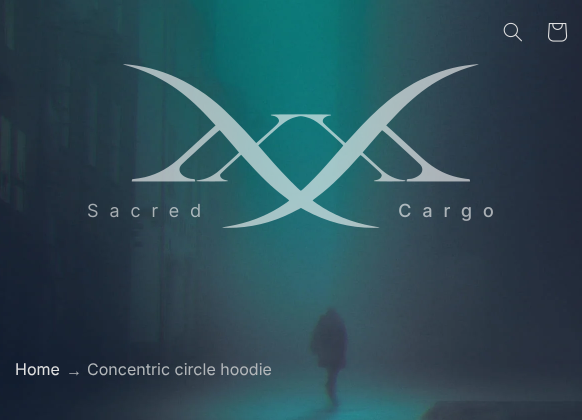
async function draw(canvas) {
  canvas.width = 582
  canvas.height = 420
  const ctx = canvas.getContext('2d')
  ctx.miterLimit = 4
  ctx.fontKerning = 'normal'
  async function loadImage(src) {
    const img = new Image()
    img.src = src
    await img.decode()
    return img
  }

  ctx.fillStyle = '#fff'
  ctx.fillRect(0, 0, 582, 420)
  ctx.drawImage(await loadImage('image0.png'), 0, 0, 582, 420)
  ctx.drawImage(await loadImage('image1.png'), 503, 22, 19, 20)
  ctx.drawImage(await loadImage('image2.png'), 548, 23, 20, 19)
  ctx.drawImage(await loadImage('image3.png'), 88, 64, 405, 164)
  ctx.font = '16px Inter'
  ctx.fillStyle = '#e1e1e1'
  ctx.fillText('Home', 15, 375)
  ctx.font = '16px Liberation Sans'
  ctx.fillStyle = '#aeb1b5'
  ctx.fillText('→', 66, 376)
  ctx.font = '16px Inter'
  ctx.fillStyle = '#b3b7ba'
  ctx.fillText('Concentric circle hoodie', 87, 375)
}

draw(document.querySelector('canvas'))
